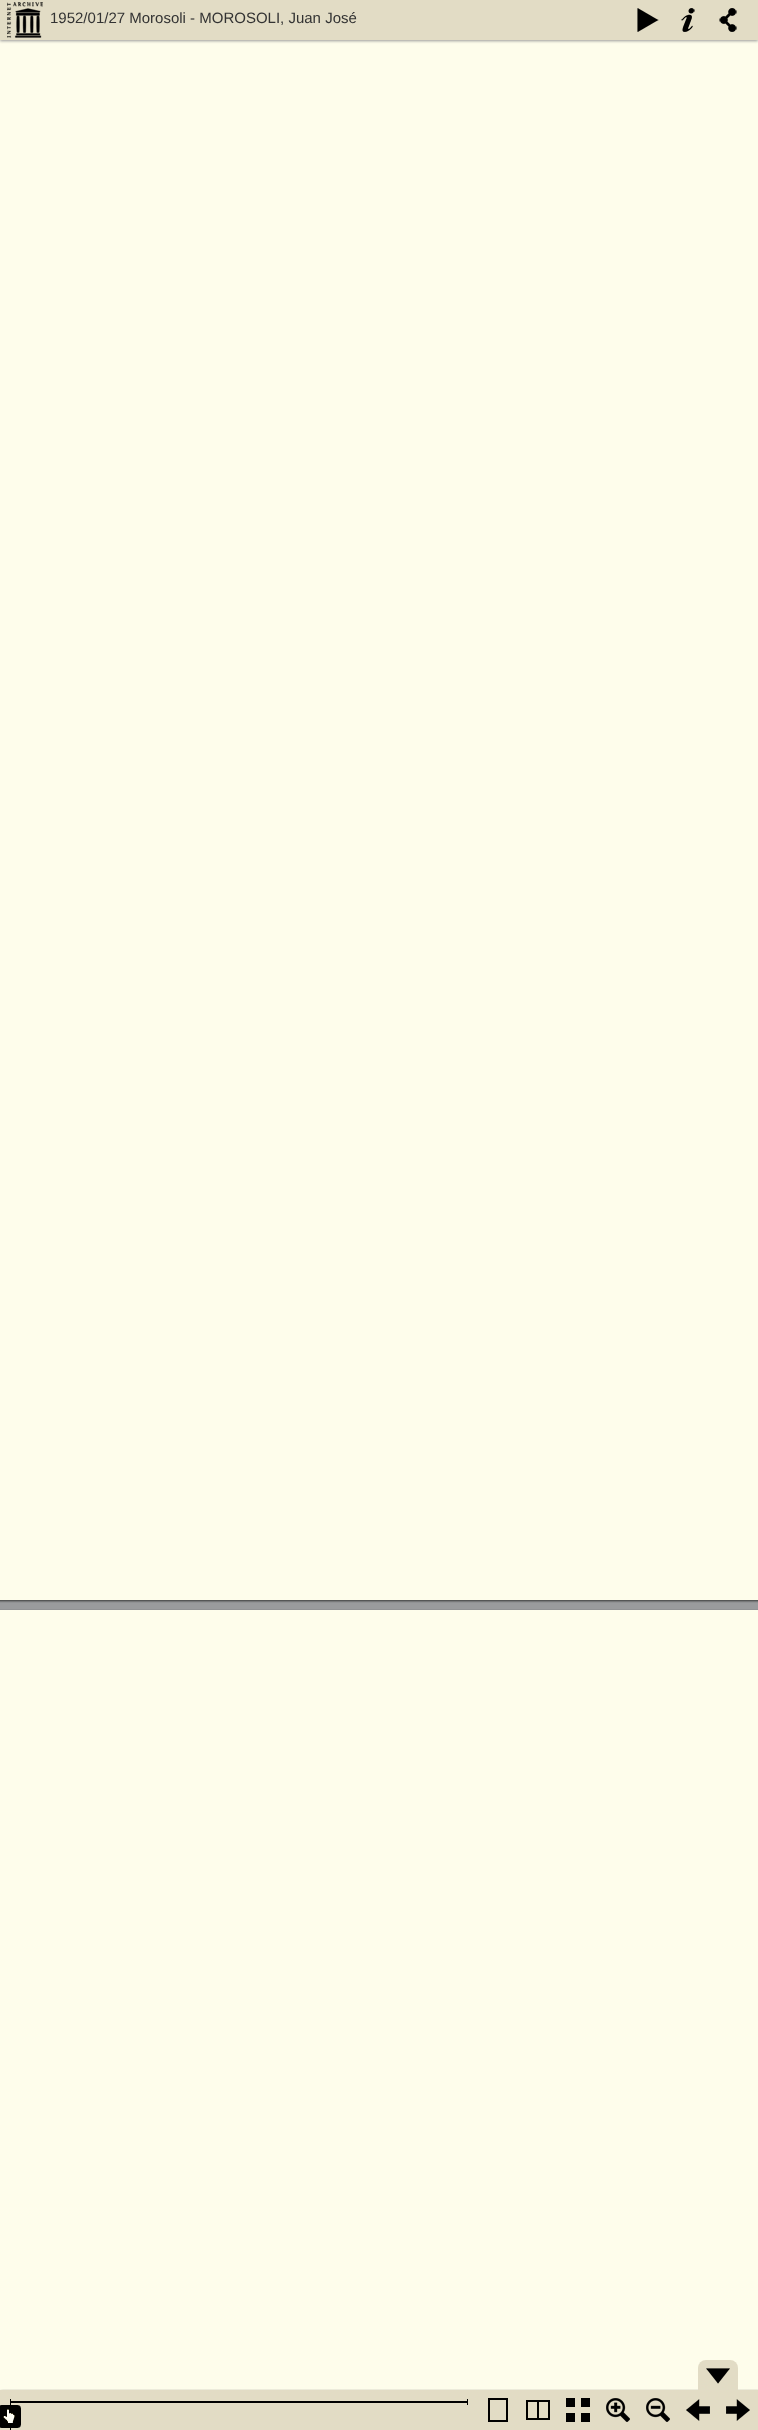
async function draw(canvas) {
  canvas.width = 758
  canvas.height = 2430
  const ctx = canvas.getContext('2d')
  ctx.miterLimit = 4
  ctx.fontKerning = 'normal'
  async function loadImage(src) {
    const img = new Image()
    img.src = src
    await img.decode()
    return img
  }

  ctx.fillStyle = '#9a9b9d'
  ctx.fillRect(0, 0, 758, 2430)
  ctx.fillStyle = '#333'
  ctx.filter = 'blur(1px)'
  ctx.beginPath()
  ctx.rect(-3, 1, 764, 1600)
  ctx.fill()
  ctx.filter = 'none'
  ctx.fillStyle = '#fefdeb'
  ctx.fillRect(0, 40, 758, 1560)
  ctx.fillStyle = '#333'
  ctx.filter = 'blur(1px)'
  ctx.beginPath()
  ctx.rect(-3, 1611, 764, 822)
  ctx.fill()
  ctx.filter = 'none'
  ctx.fillStyle = '#fefdeb'
  ctx.fillRect(0, 1610, 758, 780)
  ctx.fillStyle = '#999'
  ctx.filter = 'blur(1.5px)'
  ctx.beginPath()
  ctx.rect(0, 1, 758, 40)
  ctx.fill()
  ctx.filter = 'none'
  ctx.fillStyle = '#e2dcc5'
  ctx.fillRect(0, 0, 758, 40)
  ctx.drawImage(await loadImage('image0.png'), 7, 2, 36, 36)
  ctx.font = '15px Liberation Sans'
  ctx.fillStyle = '#333'
  ctx.fillText('1952/01/27 Morosoli - MOROSOLI, Juan José', 50, 23)
  ctx.drawImage(await loadImage('image1.png'), 637, 8, 22, 24)
  ctx.drawImage(await loadImage('image2.png'), 681, 8, 14, 24)
  ctx.drawImage(await loadImage('image3.png'), 719, 8, 18, 24)
  ctx.filter = 'blur(1px)'
  ctx.beginPath()
  ctx.rect(1, 2391, 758, 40)
  ctx.fill()
  ctx.filter = 'none'
  ctx.fillStyle = '#e2dcc5'
  ctx.fillRect(0, 2390, 758, 40)
  ctx.beginPath()
  ctx.roundRect(698, 2360, 40, 30, [8, 8, 0, 0])
  ctx.fill()
  ctx.drawImage(await loadImage('image4.png'), 706, 2368, 24, 16)
  ctx.fillStyle = '#000'
  ctx.fillRect(10, 2401, 458, 2)
  ctx.fillRect(10, 2399, 1, 6)
  ctx.fillRect(467, 2399, 1, 6)
  ctx.drawImage(await loadImage('image5.png'), 0, 2405, 21, 25)
  ctx.drawImage(await loadImage('image6.png'), 488, 2398, 20, 24)
  ctx.drawImage(await loadImage('image7.png'), 526, 2400, 24, 20)
  ctx.drawImage(await loadImage('image8.png'), 566, 2398, 24, 24)
  ctx.drawImage(await loadImage('image9.png'), 606, 2398, 24, 24)
  ctx.drawImage(await loadImage('image10.png'), 646, 2398, 24, 24)
  ctx.drawImage(await loadImage('image11.png'), 686, 2399, 24, 22)
  ctx.drawImage(await loadImage('image12.png'), 726, 2399, 24, 22)
}

draw(document.querySelector('canvas'))
